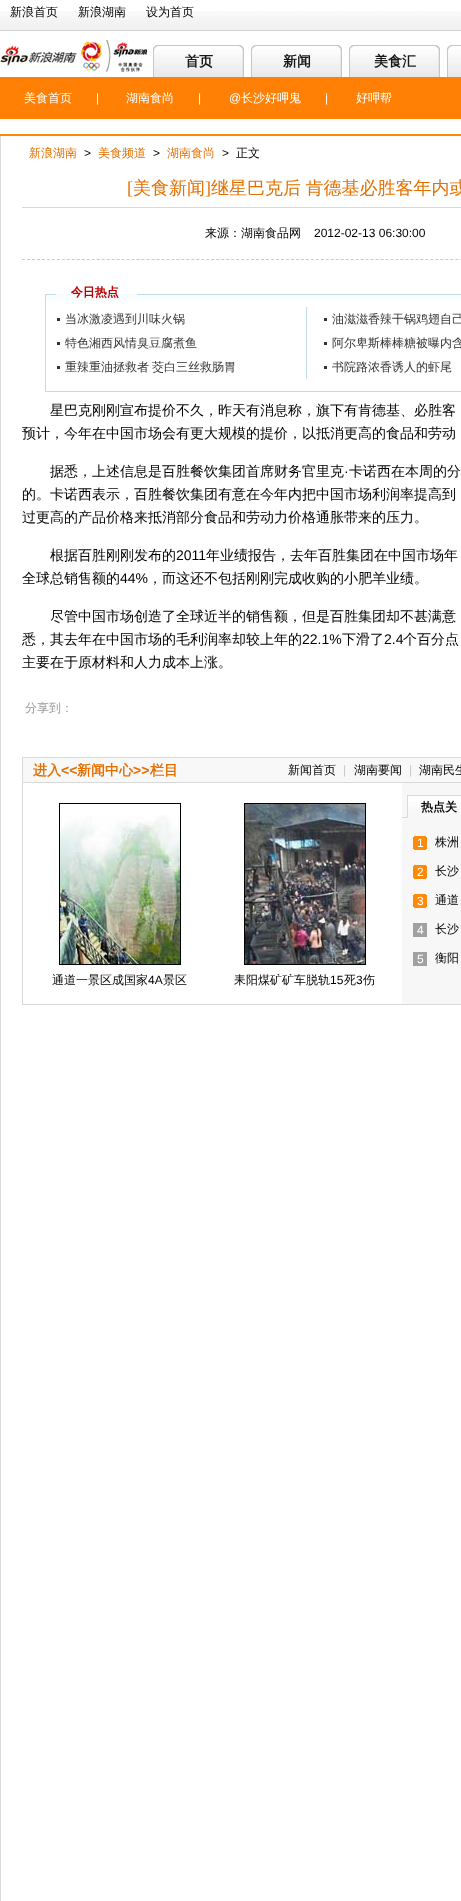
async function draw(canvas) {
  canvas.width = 461
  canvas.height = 1901
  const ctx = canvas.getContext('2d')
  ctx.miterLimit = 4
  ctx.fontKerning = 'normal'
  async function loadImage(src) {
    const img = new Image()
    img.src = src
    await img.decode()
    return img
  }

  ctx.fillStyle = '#fff'
  ctx.fillRect(0, 0, 461, 1901)
  ctx.drawImage(await loadImage('image0.png'), 0, 11, 461, 20)
  ctx.font = '500 12px WenQuanYi Zen Hei'
  ctx.fillStyle = '#000'
  ctx.fillText('新浪首页', 10, 16)
  ctx.fillText('新浪湖南', 78, 16)
  ctx.fillText('设为首页', 146, 16)
  ctx.drawImage(await loadImage('image1.png'), 0, 40, 147, 32)
  ctx.drawImage(await loadImage('image2.png'), 153, 45, 91, 32)
  ctx.font = 'bold 14px WenQuanYi Zen Hei'
  ctx.fillStyle = '#171717'
  ctx.fillText('首页', 185, 66)
  ctx.drawImage(await loadImage('image2.png'), 251, 45, 91, 32)
  ctx.fillText('新闻', 283, 66)
  ctx.drawImage(await loadImage('image2.png'), 349, 45, 91, 32)
  ctx.fillText('美食汇', 374, 66)
  ctx.drawImage(await loadImage('image3.png'), 447, 45, 14, 32)
  ctx.fillStyle = '#ff8004'
  ctx.fillRect(0, 77, 461, 42)
  ctx.font = '500 12px WenQuanYi Zen Hei'
  ctx.fillStyle = '#fff'
  ctx.fillText('美食首页', 24, 102)
  ctx.font = '12px Liberation Sans'
  ctx.fillText('|', 96, 102)
  ctx.font = '500 12px WenQuanYi Zen Hei'
  ctx.fillText('湖南食尚', 126, 102)
  ctx.font = '12px Liberation Sans'
  ctx.fillText('|', 198, 102)
  ctx.fillText('@', 229, 102)
  ctx.font = '500 12px WenQuanYi Zen Hei'
  ctx.fillText('长沙好呷鬼', 241, 102)
  ctx.font = '12px Liberation Sans'
  ctx.fillText('|', 325, 102)
  ctx.font = '500 12px WenQuanYi Zen Hei'
  ctx.fillText('好呷帮', 356, 102)
  ctx.fillStyle = '#ff8a07'
  ctx.fillRect(0, 134, 461, 2)
  ctx.fillStyle = '#dcdcdc'
  ctx.fillRect(0, 136, 1, 1765)
  ctx.fillStyle = '#e57000'
  ctx.fillText('新浪湖南', 29, 157)
  ctx.font = '12px Liberation Sans'
  ctx.fillStyle = '#000'
  ctx.fillText('>', 84, 157)
  ctx.font = '500 12px WenQuanYi Zen Hei'
  ctx.fillStyle = '#e57000'
  ctx.fillText('美食频道', 98, 157)
  ctx.font = '12px Liberation Sans'
  ctx.fillStyle = '#000'
  ctx.fillText('>', 153, 157)
  ctx.font = '500 12px WenQuanYi Zen Hei'
  ctx.fillStyle = '#e57000'
  ctx.fillText('湖南食尚', 167, 157)
  ctx.font = '12px Liberation Sans'
  ctx.fillStyle = '#000'
  ctx.fillText('>', 222, 157)
  ctx.font = '500 12px WenQuanYi Zen Hei'
  ctx.fillText('正文', 236, 157)
  ctx.font = '18px Liberation Serif'
  ctx.fillStyle = '#e57000'
  ctx.fillText('[', 127, 194)
  ctx.font = '500 18px WenQuanYi Zen Hei'
  ctx.fillText('美食新闻', 133, 194)
  ctx.font = '18px Liberation Serif'
  ctx.fillText(']', 205, 194)
  ctx.wordSpacing = '-1px'
  ctx.font = '500 18px WenQuanYi Zen Hei'
  ctx.fillText('继星巴克后 肯德基必胜客年内或', 211, 194)
  ctx.fillStyle = '#ead7bb'
  ctx.fillRect(22, 207, 439, 1)
  ctx.beginPath()
  ctx.moveTo(22, 259.5)
  ctx.lineTo(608, 259.5)
  ctx.strokeStyle = '#cacaca'
  ctx.setLineDash([3, 1.98])
  ctx.stroke()
  ctx.wordSpacing = '0px'
  ctx.font = '500 12px WenQuanYi Zen Hei'
  ctx.fillStyle = '#000'
  ctx.fillText('来源：湖南食品网', 205, 237)
  ctx.font = '12px Liberation Sans'
  ctx.fillText('2012-02-13 06:30:00', 314, 237)
  ctx.drawImage(await loadImage('image4.png'), 45, 285, 416, 107)
  ctx.font = '500 14px WenQuanYi Zen Hei'
  ctx.fillText('星巴克刚刚宣布提价不久，昨天有消息称，旗下有肯德基、必胜客', 50, 415)
  ctx.fillText('预计，今年在中国市场会有更大规模的提价，以抵消更高的食品和劳动', 22, 438)
  ctx.fillText('据悉，上述信息是百胜餐饮集团首席财务官里克', 50, 476)
  ctx.font = '14px Liberation Sans'
  ctx.fillText('·', 344, 476)
  ctx.font = '500 14px WenQuanYi Zen Hei'
  ctx.fillText('卡诺西在本周的分', 349, 476)
  ctx.fillText('的。卡诺西表示，百胜餐饮集团有意在今年内把中国市场利润率提高到', 22, 499)
  ctx.fillText('过更高的产品价格来抵消部分食品和劳动力价格通胀带来的压力。', 22, 522)
  ctx.fillText('根据百胜刚刚发布的', 50, 560)
  ctx.font = '14px Liberation Sans'
  ctx.fillText('2011', 176, 560)
  ctx.font = '500 14px WenQuanYi Zen Hei'
  ctx.fillText('年业绩报告，去年百胜集团在中国市场年', 206, 560)
  ctx.fillText('全球总销售额的', 22, 583)
  ctx.font = '14px Liberation Sans'
  ctx.fillText('44%', 120, 583)
  ctx.font = '500 14px WenQuanYi Zen Hei'
  ctx.fillText('，而这还不包括刚刚完成收购的小肥羊业绩。', 148, 583)
  ctx.fillText('尽管中国市场创造了全球近半的销售额，但是百胜集团却不甚满意', 50, 621)
  ctx.fillText('悉，其去年在中国市场的毛利润率却较上年的', 22, 644)
  ctx.font = '14px Liberation Sans'
  ctx.fillText('22.1%', 302, 644)
  ctx.font = '500 14px WenQuanYi Zen Hei'
  ctx.fillText('下滑了', 342, 644)
  ctx.font = '14px Liberation Sans'
  ctx.fillText('2.4', 384, 644)
  ctx.font = '500 14px WenQuanYi Zen Hei'
  ctx.fillText('个百分点', 403, 644)
  ctx.fillText('主要在于原材料和人力成本上涨。', 22, 667)
  ctx.font = '500 12px WenQuanYi Zen Hei'
  ctx.fillStyle = '#999'
  ctx.fillText('分享到：', 25, 712)
  ctx.fillStyle = '#f8f8f8'
  ctx.beginPath()
  ctx.rect(22.5, 757.5, 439, 25)
  ctx.fill()
  ctx.strokeStyle = '#d9d9d9'
  ctx.setLineDash([])
  ctx.stroke()
  ctx.font = 'bold 14px WenQuanYi Zen Hei'
  ctx.fillStyle = '#e57000'
  ctx.fillText('进入', 33, 775)
  ctx.font = 'bold 14px Liberation Sans'
  ctx.fillText('<<', 61, 775)
  ctx.font = 'bold 14px WenQuanYi Zen Hei'
  ctx.fillText('新闻中心', 77, 775)
  ctx.font = 'bold 14px Liberation Sans'
  ctx.fillText('>>', 133, 775)
  ctx.font = 'bold 14px WenQuanYi Zen Hei'
  ctx.fillText('栏目', 150, 775)
  ctx.font = '500 12px WenQuanYi Zen Hei'
  ctx.fillStyle = '#000'
  ctx.fillText('新闻首页', 288, 774)
  ctx.font = '12px Liberation Sans'
  ctx.fillStyle = '#c6c6c4'
  ctx.fillText('|', 343, 774)
  ctx.font = '500 12px WenQuanYi Zen Hei'
  ctx.fillStyle = '#000'
  ctx.fillText('湖南要闻', 354, 774)
  ctx.font = '12px Liberation Sans'
  ctx.fillStyle = '#c6c6c4'
  ctx.fillText('|', 409, 774)
  ctx.font = '500 12px WenQuanYi Zen Hei'
  ctx.fillStyle = '#000'
  ctx.fillText('湖南民生', 419, 774)
  ctx.fillStyle = '#d9d9d9'
  ctx.fillRect(22, 1004, 439, 1)
  ctx.fillRect(22, 783, 1, 222)
  ctx.fillStyle = '#f7f7f7'
  ctx.fillRect(402, 783, 59, 221)
  ctx.fillStyle = '#d9d9d9'
  ctx.fillRect(402, 817, 5, 1)
  ctx.drawImage(await loadImage('image5.png'), 408, 796, 53, 22)
  ctx.fillRect(407, 795, 54, 1)
  ctx.fillRect(407, 795, 1, 23)
  ctx.font = 'bold 12px WenQuanYi Zen Hei'
  ctx.fillStyle = '#000'
  ctx.fillText('热点关', 421, 811)
  ctx.drawImage(await loadImage('image6.png'), 413, 836, 14, 14)
  ctx.font = '12px Liberation Sans'
  ctx.fillStyle = '#fff'
  ctx.fillText('1', 417, 847)
  ctx.font = '500 12px WenQuanYi Zen Hei'
  ctx.fillStyle = '#000'
  ctx.fillText('株洲', 435, 846)
  ctx.drawImage(await loadImage('image6.png'), 413, 865, 14, 14)
  ctx.font = '12px Liberation Sans'
  ctx.fillStyle = '#fff'
  ctx.fillText('2', 417, 876)
  ctx.font = '500 12px WenQuanYi Zen Hei'
  ctx.fillStyle = '#000'
  ctx.fillText('长沙', 435, 875)
  ctx.drawImage(await loadImage('image6.png'), 413, 894, 14, 14)
  ctx.font = '12px Liberation Sans'
  ctx.fillStyle = '#fff'
  ctx.fillText('3', 417, 905)
  ctx.font = '500 12px WenQuanYi Zen Hei'
  ctx.fillStyle = '#000'
  ctx.fillText('通道', 435, 904)
  ctx.fillStyle = '#a1a1a1'
  ctx.fillRect(413, 923, 14, 14)
  ctx.font = '12px Liberation Sans'
  ctx.fillStyle = '#fff'
  ctx.fillText('4', 417, 934)
  ctx.font = '500 12px WenQuanYi Zen Hei'
  ctx.fillStyle = '#000'
  ctx.fillText('长沙', 435, 933)
  ctx.fillStyle = '#a1a1a1'
  ctx.fillRect(413, 952, 14, 14)
  ctx.font = '12px Liberation Sans'
  ctx.fillStyle = '#fff'
  ctx.fillText('5', 417, 963)
  ctx.font = '500 12px WenQuanYi Zen Hei'
  ctx.fillStyle = '#000'
  ctx.fillText('衡阳', 435, 962)
  ctx.strokeStyle = '#000'
  ctx.strokeRect(59.5, 803.5, 121, 161)
  ctx.drawImage(await loadImage('image7.png'), 60, 815, 120, 149)
  ctx.fillText('通道一景区成国家', 52, 984)
  ctx.font = '12px Liberation Sans'
  ctx.fillText('4A', 148, 984)
  ctx.font = '500 12px WenQuanYi Zen Hei'
  ctx.fillText('景区', 163, 984)
  ctx.strokeRect(244.5, 803.5, 121, 161)
  ctx.drawImage(await loadImage('image8.png'), 245, 804, 120, 160)
  ctx.fillText('耒阳煤矿矿车脱轨', 234, 984)
  ctx.font = '12px Liberation Sans'
  ctx.fillText('15', 330, 984)
  ctx.font = '500 12px WenQuanYi Zen Hei'
  ctx.fillText('死', 344, 984)
  ctx.font = '12px Liberation Sans'
  ctx.fillText('3', 356, 984)
  ctx.font = '500 12px WenQuanYi Zen Hei'
  ctx.fillText('伤', 363, 984)
}

draw(document.querySelector('canvas'))
